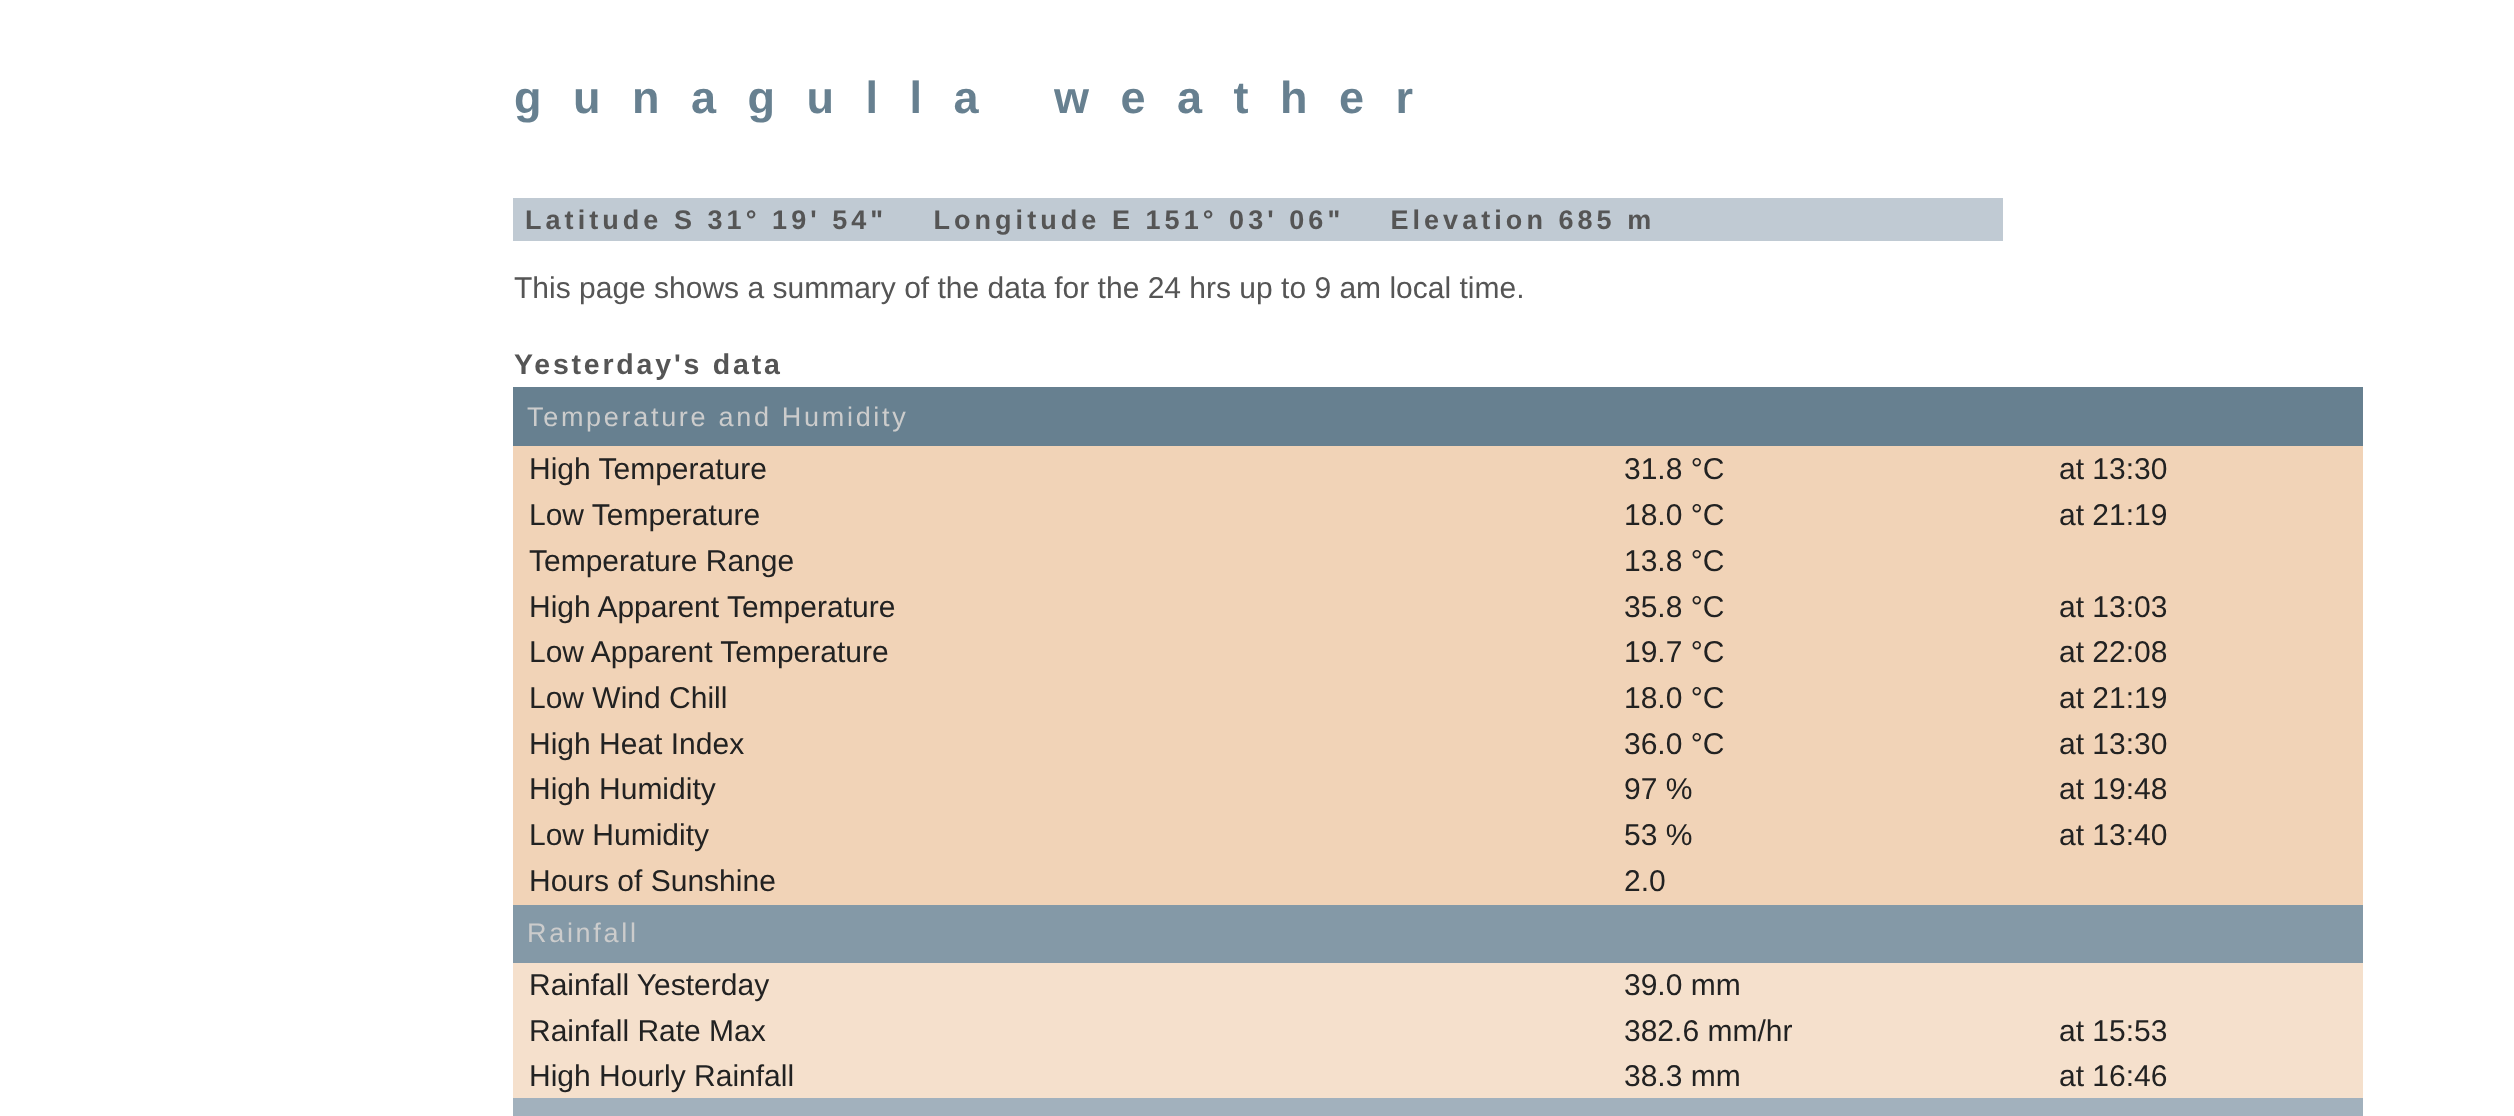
async function draw(canvas) {
  canvas.width = 2514
  canvas.height = 1116
  const ctx = canvas.getContext('2d')
  ctx.miterLimit = 4
  ctx.fontKerning = 'normal'

  ctx.fillStyle = '#fff'
  ctx.fillRect(0, 0, 2514, 1116)
  ctx.letterSpacing = '31.5px'
  ctx.font = 'bold 45px Liberation Sans'
  ctx.fillStyle = '#678090'
  ctx.fillText('gunagulla weather', 514, 113)
  ctx.fillStyle = '#c0cad3'
  ctx.fillRect(513, 198, 1490, 43)
  ctx.letterSpacing = '4.05px'
  ctx.font = 'bold 27px Liberation Sans'
  ctx.fillStyle = '#555'
  ctx.fillText('Latitude S 31° 19\' 54"    Longitude E 151° 03\' 06"    Elevation 685 m', 525, 229)
  ctx.letterSpacing = '0px'
  ctx.font = '30px Liberation Sans'
  ctx.fillText('This page shows a summary of the data for the 24 hrs up to 9 am local time.', 514, 298)
  ctx.letterSpacing = '2.8px'
  ctx.font = 'bold 28.5px Liberation Sans'
  ctx.fillText('Yesterday\'s data', 514, 374)
  ctx.fillStyle = '#678090'
  ctx.fillRect(513, 387, 1850, 59)
  ctx.letterSpacing = '2.7px'
  ctx.font = '27px Liberation Sans'
  ctx.fillStyle = '#ccc'
  ctx.fillText('Temperature and Humidity', 527, 426)
  ctx.fillStyle = '#f1d3b7'
  ctx.fillRect(513, 446, 1850, 459)
  ctx.letterSpacing = '0px'
  ctx.font = '30px Liberation Sans'
  ctx.fillStyle = '#222'
  ctx.fillText('High Temperature', 529, 479)
  ctx.fillText('31.8 °C', 1624, 479)
  ctx.fillText('at 13:30', 2059, 479)
  ctx.fillText('Low Temperature', 529, 525)
  ctx.fillText('18.0 °C', 1624, 525)
  ctx.fillText('at 21:19', 2059, 525)
  ctx.fillText('Temperature Range', 529, 571)
  ctx.fillText('13.8 °C', 1624, 571)
  ctx.fillText('High Apparent Temperature', 529, 617)
  ctx.fillText('35.8 °C', 1624, 617)
  ctx.fillText('at 13:03', 2059, 617)
  ctx.fillText('Low Apparent Temperature', 529, 662)
  ctx.fillText('19.7 °C', 1624, 662)
  ctx.fillText('at 22:08', 2059, 662)
  ctx.fillText('Low Wind Chill', 529, 708)
  ctx.fillText('18.0 °C', 1624, 708)
  ctx.fillText('at 21:19', 2059, 708)
  ctx.fillText('High Heat Index', 529, 754)
  ctx.fillText('36.0 °C', 1624, 754)
  ctx.fillText('at 13:30', 2059, 754)
  ctx.fillText('High Humidity', 529, 799)
  ctx.fillText('97 %', 1624, 799)
  ctx.fillText('at 19:48', 2059, 799)
  ctx.fillText('Low Humidity', 529, 845)
  ctx.fillText('53 %', 1624, 845)
  ctx.fillText('at 13:40', 2059, 845)
  ctx.fillText('Hours of Sunshine', 529, 891)
  ctx.fillText('2.0', 1624, 891)
  ctx.fillStyle = '#8499a7'
  ctx.fillRect(513, 905, 1850, 58)
  ctx.letterSpacing = '2.7px'
  ctx.font = '27px Liberation Sans'
  ctx.fillStyle = '#ccc'
  ctx.fillText('Rainfall', 527, 942)
  ctx.fillStyle = '#f5e0cc'
  ctx.fillRect(513, 963, 1850, 135)
  ctx.letterSpacing = '0px'
  ctx.font = '30px Liberation Sans'
  ctx.fillStyle = '#222'
  ctx.fillText('Rainfall Yesterday', 529, 995)
  ctx.fillText('39.0 mm', 1624, 995)
  ctx.fillText('Rainfall Rate Max', 529, 1041)
  ctx.fillText('382.6 mm/hr', 1624, 1041)
  ctx.fillText('at 15:53', 2059, 1041)
  ctx.fillText('High Hourly Rainfall', 529, 1086)
  ctx.fillText('38.3 mm', 1624, 1086)
  ctx.fillText('at 16:46', 2059, 1086)
  ctx.fillStyle = '#a2b1bd'
  ctx.fillRect(513, 1098, 1850, 18)
}

draw(document.querySelector('canvas'))
